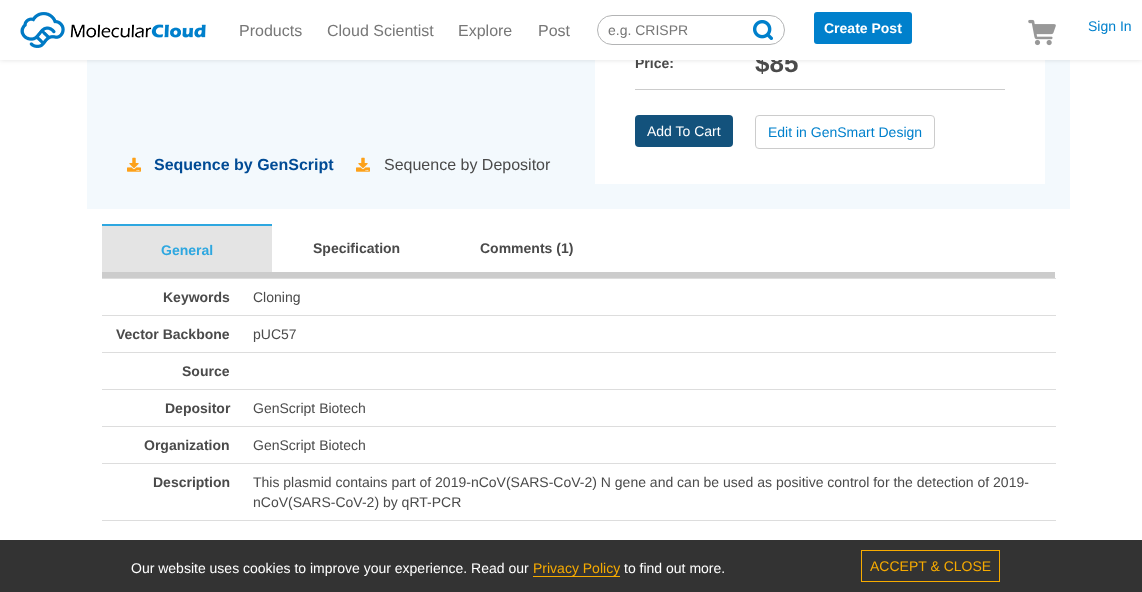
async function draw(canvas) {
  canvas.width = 1142
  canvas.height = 592
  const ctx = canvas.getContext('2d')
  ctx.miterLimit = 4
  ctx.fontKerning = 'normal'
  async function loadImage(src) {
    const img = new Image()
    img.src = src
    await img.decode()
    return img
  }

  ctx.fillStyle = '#fff'
  ctx.fillRect(0, 0, 1142, 592)
  ctx.fillStyle = '#f3f9fd'
  ctx.fillRect(87, 60, 983, 149)
  ctx.fillStyle = '#fff'
  ctx.fillRect(595, 60, 450, 124)
  ctx.fillStyle = '#0000001f'
  ctx.filter = 'blur(2.5px)'
  ctx.beginPath()
  ctx.rect(0, 0, 1142, 60)
  ctx.fill()
  ctx.filter = 'none'
  ctx.font = 'bold 14px Liberation Sans'
  ctx.fillStyle = '#4a4a4a'
  ctx.fillText('Price:', 635, 68)
  ctx.font = 'bold 26px Liberation Sans'
  ctx.fillText('$85', 755, 72)
  ctx.fillStyle = '#fff'
  ctx.fillRect(0, 0, 1142, 60)
  ctx.drawImage(await loadImage('image0.png'), 20, 12, 186, 36)
  ctx.font = '16px Liberation Sans'
  ctx.fillStyle = '#777'
  ctx.fillText('Products', 239, 36)
  ctx.fillText('Cloud Scientist', 327, 36)
  ctx.fillText('Explore', 458, 36)
  ctx.fillText('Post', 538, 36)
  ctx.beginPath()
  ctx.roundRect(597.5, 15.5, 187, 29, 14.5)
  ctx.strokeStyle = '#b3b4b5'
  ctx.stroke()
  ctx.font = '14px Liberation Sans'
  ctx.fillText('e.g. CRISPR', 608, 35)
  ctx.drawImage(await loadImage('image1.png'), 753, 20, 20, 20)
  ctx.fillStyle = '#0080cc'
  ctx.beginPath()
  ctx.roundRect(814, 12, 98, 32, 3)
  ctx.fill()
  ctx.font = 'bold 14px Liberation Sans'
  ctx.fillStyle = '#fff'
  ctx.fillText('Create Post', 824, 33)
  ctx.drawImage(await loadImage('image2.png'), 1028, 19, 28, 27)
  ctx.font = '14px Liberation Sans'
  ctx.fillStyle = '#0080cc'
  ctx.fillText('Sign In', 1088, 31)
  ctx.fillStyle = '#ccc'
  ctx.fillRect(635, 89, 370, 1)
  ctx.fillStyle = '#13527c'
  ctx.beginPath()
  ctx.roundRect(635, 115, 98, 32, 4)
  ctx.fill()
  ctx.fillStyle = '#fff'
  ctx.fillText('Add To Cart', 647, 136)
  ctx.beginPath()
  ctx.roundRect(755.5, 115.5, 179, 33, 3.5)
  ctx.strokeStyle = '#ccc'
  ctx.stroke()
  ctx.fillStyle = '#0080cc'
  ctx.fillText('Edit in GenSmart Design', 768, 137)
  ctx.drawImage(await loadImage('image3.png'), 127, 157, 14, 15)
  ctx.font = 'bold 16px Liberation Sans'
  ctx.fillStyle = '#004b95'
  ctx.fillText('Sequence by GenScript', 154, 170)
  ctx.drawImage(await loadImage('image3.png'), 356, 157, 14, 15)
  ctx.font = '16px Liberation Sans'
  ctx.fillStyle = '#4a4a4a'
  ctx.fillText('Sequence by Depositor', 384, 170)
  ctx.fillStyle = '#e4e4e4'
  ctx.fillRect(102, 226, 170, 46)
  ctx.fillStyle = '#2ea7e0'
  ctx.fillRect(102, 224, 170, 2)
  ctx.font = 'bold 14px Liberation Sans'
  ctx.fillText('General', 161, 255)
  ctx.fillStyle = '#4a4a4a'
  ctx.fillText('Specification', 313, 253)
  ctx.fillText('Comments (1)', 480, 253)
  ctx.fillStyle = '#ccc'
  ctx.fillRect(102, 272, 953, 6)
  ctx.fillStyle = '#4a4a4a'
  ctx.fillText('Keywords', 163, 302)
  ctx.fillStyle = '#ddd'
  ctx.fillRect(102, 278, 954, 1)
  ctx.font = '14px Liberation Sans'
  ctx.fillStyle = '#4a4a4a'
  ctx.fillText('Cloning', 253, 302)
  ctx.font = 'bold 14px Liberation Sans'
  ctx.fillText('Vector Backbone', 116, 339)
  ctx.fillStyle = '#ddd'
  ctx.fillRect(102, 315, 954, 1)
  ctx.font = '14px Liberation Sans'
  ctx.fillStyle = '#4a4a4a'
  ctx.fillText('pUC57', 253, 339)
  ctx.fillStyle = '#ddd'
  ctx.fillRect(102, 352, 954, 1)
  ctx.font = 'bold 14px Liberation Sans'
  ctx.fillStyle = '#4a4a4a'
  ctx.fillText('Source', 182, 376)
  ctx.fillText('Depositor', 165, 413)
  ctx.fillStyle = '#ddd'
  ctx.fillRect(102, 389, 954, 1)
  ctx.font = '14px Liberation Sans'
  ctx.fillStyle = '#4a4a4a'
  ctx.fillText('GenScript Biotech', 253, 413)
  ctx.font = 'bold 14px Liberation Sans'
  ctx.fillText('Organization', 144, 450)
  ctx.fillStyle = '#ddd'
  ctx.fillRect(102, 426, 954, 1)
  ctx.font = '14px Liberation Sans'
  ctx.fillStyle = '#4a4a4a'
  ctx.fillText('GenScript Biotech', 253, 450)
  ctx.font = 'bold 14px Liberation Sans'
  ctx.fillText('Description', 153, 487)
  ctx.fillStyle = '#ddd'
  ctx.fillRect(102, 463, 954, 1)
  ctx.font = '14px Liberation Sans'
  ctx.fillStyle = '#4a4a4a'
  ctx.fillText('This plasmid contains part of 2019-nCoV(SARS-CoV-2) N gene and can be used as positive control for the detection of 2019-', 253, 487)
  ctx.fillText('nCoV(SARS-CoV-2) by qRT-PCR', 253, 507)
  ctx.fillStyle = '#ddd'
  ctx.fillRect(102, 520, 954, 1)
  ctx.fillStyle = '#333'
  ctx.fillRect(0, 540, 1142, 52)
  ctx.fillStyle = '#fff'
  ctx.fillText('Our website uses cookies to improve your experience. Read our', 131, 573)
  ctx.fillStyle = '#f7ab00'
  ctx.fillText('Privacy Policy', 533, 573)
  ctx.fillRect(533, 576, 87, 1)
  ctx.fillStyle = '#fff'
  ctx.fillText('to find out more.', 624, 573)
  ctx.strokeStyle = '#f7ab00'
  ctx.strokeRect(861.5, 550.5, 138, 31)
  ctx.fillStyle = '#f7ab00'
  ctx.fillText('ACCEPT & CLOSE', 870, 571)
}

draw(document.querySelector('canvas'))
